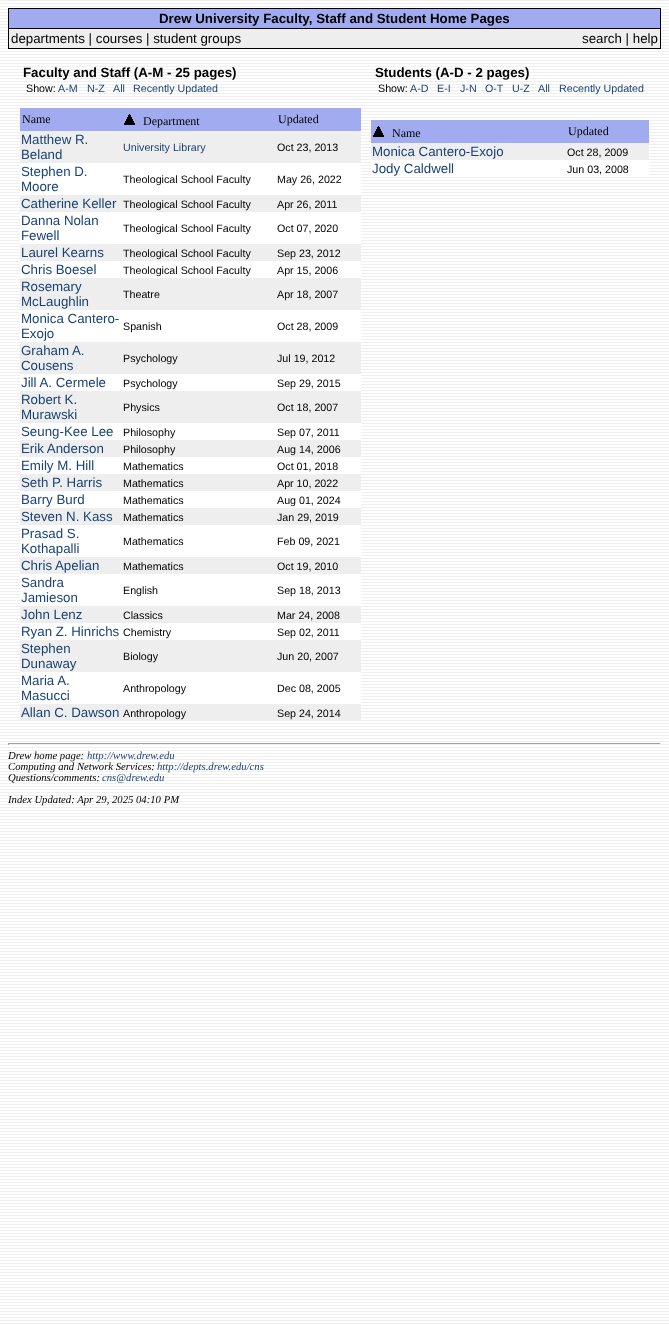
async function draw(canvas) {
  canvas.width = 669
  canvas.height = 1325
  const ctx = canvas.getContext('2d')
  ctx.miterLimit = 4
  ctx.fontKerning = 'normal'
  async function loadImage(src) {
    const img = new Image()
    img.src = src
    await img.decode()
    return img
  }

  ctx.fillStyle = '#fff'
  ctx.fillRect(0, 0, 669, 1325)
  ctx.drawImage(await loadImage('image0.png'), 0, 0, 669, 1324)
  ctx.fillStyle = '#000'
  ctx.fillRect(8, 8, 653, 41)
  ctx.fillStyle = '#a0acef'
  ctx.fillRect(9, 9, 651, 19)
  ctx.font = 'bold 13.3px Liberation Sans'
  ctx.fillStyle = '#000'
  ctx.fillText('Drew University Faculty, Staff and Student Home Pages', 159, 23)
  ctx.fillStyle = '#eee'
  ctx.fillRect(9, 29, 651, 19)
  ctx.font = '13.3px Liberation Sans'
  ctx.fillStyle = '#000'
  ctx.fillText('departments | courses | student groups', 11, 43)
  ctx.fillText('search | help', 582, 43)
  ctx.font = 'bold 13.3px Liberation Sans'
  ctx.fillText('Faculty and Staff (A-M - 25 pages)', 23, 77)
  ctx.font = '10.7px Liberation Sans'
  ctx.fillText('Show:', 26, 92)
  ctx.fillStyle = '#194275'
  ctx.fillText('A-M', 58, 92)
  ctx.fillText('N-Z', 87, 92)
  ctx.fillText('All', 113, 92)
  ctx.fillText('Recently Updated', 133, 92)
  ctx.fillStyle = '#a0acef'
  ctx.fillRect(20, 108, 341, 23)
  ctx.font = '12px Liberation Serif'
  ctx.fillStyle = '#000'
  ctx.fillText('Name', 22, 123)
  ctx.drawImage(await loadImage('image1.png'), 124, 114, 11, 11)
  ctx.fillText('Department', 143, 125)
  ctx.fillText('Updated', 278, 123)
  ctx.fillStyle = '#eee'
  ctx.fillRect(20, 131, 341, 31)
  ctx.font = '13.3px Liberation Sans'
  ctx.fillStyle = '#194275'
  ctx.fillText('Matthew R.', 21, 144)
  ctx.fillText('Beland', 21, 159)
  ctx.font = '10.7px Liberation Sans'
  ctx.fillText('University Library', 123, 151)
  ctx.fillStyle = '#000'
  ctx.fillText('Oct 23, 2013', 277, 151)
  ctx.fillStyle = '#fff'
  ctx.fillRect(20, 165, 341, 28)
  ctx.font = '13.3px Liberation Sans'
  ctx.fillStyle = '#194275'
  ctx.fillText('Stephen D.', 21, 176)
  ctx.fillText('Moore', 21, 191)
  ctx.font = '10.7px Liberation Sans'
  ctx.fillStyle = '#000'
  ctx.fillText('Theological School Faculty', 123, 183)
  ctx.fillText('May 26, 2022', 277, 183)
  ctx.fillStyle = '#eee'
  ctx.fillRect(20, 196, 341, 16)
  ctx.font = '13.3px Liberation Sans'
  ctx.fillStyle = '#194275'
  ctx.fillText('Catherine Keller', 21, 208)
  ctx.font = '10.7px Liberation Sans'
  ctx.fillStyle = '#000'
  ctx.fillText('Theological School Faculty', 123, 208)
  ctx.fillText('Apr 26, 2011', 277, 208)
  ctx.fillStyle = '#fff'
  ctx.fillRect(20, 213, 341, 31)
  ctx.font = '13.3px Liberation Sans'
  ctx.fillStyle = '#194275'
  ctx.fillText('Danna Nolan', 21, 225)
  ctx.fillText('Fewell', 21, 240)
  ctx.font = '10.7px Liberation Sans'
  ctx.fillStyle = '#000'
  ctx.fillText('Theological School Faculty', 123, 232)
  ctx.fillText('Oct 07, 2020', 277, 232)
  ctx.fillStyle = '#eee'
  ctx.fillRect(20, 244, 341, 17)
  ctx.font = '13.3px Liberation Sans'
  ctx.fillStyle = '#194275'
  ctx.fillText('Laurel Kearns', 21, 257)
  ctx.font = '10.7px Liberation Sans'
  ctx.fillStyle = '#000'
  ctx.fillText('Theological School Faculty', 123, 257)
  ctx.fillText('Sep 23, 2012', 277, 257)
  ctx.fillStyle = '#fff'
  ctx.fillRect(20, 261, 341, 16)
  ctx.font = '13.3px Liberation Sans'
  ctx.fillStyle = '#194275'
  ctx.fillText('Chris Boesel', 21, 274)
  ctx.font = '10.7px Liberation Sans'
  ctx.fillStyle = '#000'
  ctx.fillText('Theological School Faculty', 123, 274)
  ctx.fillText('Apr 15, 2006', 277, 274)
  ctx.fillStyle = '#eee'
  ctx.fillRect(20, 278, 341, 31)
  ctx.font = '13.3px Liberation Sans'
  ctx.fillStyle = '#194275'
  ctx.fillText('Rosemary', 21, 291)
  ctx.fillText('McLaughlin', 21, 306)
  ctx.font = '10.7px Liberation Sans'
  ctx.fillStyle = '#000'
  ctx.fillText('Theatre', 123, 298)
  ctx.fillText('Apr 18, 2007', 277, 298)
  ctx.fillStyle = '#fff'
  ctx.fillRect(20, 312, 341, 28)
  ctx.font = '13.3px Liberation Sans'
  ctx.fillStyle = '#194275'
  ctx.fillText('Monica Cantero-', 21, 323)
  ctx.fillText('Exojo', 21, 338)
  ctx.font = '10.7px Liberation Sans'
  ctx.fillStyle = '#000'
  ctx.fillText('Spanish', 123, 330)
  ctx.fillText('Oct 28, 2009', 277, 330)
  ctx.fillStyle = '#eee'
  ctx.fillRect(20, 343, 341, 31)
  ctx.font = '13.3px Liberation Sans'
  ctx.fillStyle = '#194275'
  ctx.fillText('Graham A.', 21, 355)
  ctx.fillText('Cousens', 21, 370)
  ctx.font = '10.7px Liberation Sans'
  ctx.fillStyle = '#000'
  ctx.fillText('Psychology', 123, 362)
  ctx.fillText('Jul 19, 2012', 277, 362)
  ctx.fillStyle = '#fff'
  ctx.fillRect(20, 375, 341, 16)
  ctx.font = '13.3px Liberation Sans'
  ctx.fillStyle = '#194275'
  ctx.fillText('Jill A. Cermele', 21, 387)
  ctx.font = '10.7px Liberation Sans'
  ctx.fillStyle = '#000'
  ctx.fillText('Psychology', 123, 387)
  ctx.fillText('Sep 29, 2015', 277, 387)
  ctx.fillStyle = '#eee'
  ctx.fillRect(20, 391, 341, 32)
  ctx.font = '13.3px Liberation Sans'
  ctx.fillStyle = '#194275'
  ctx.fillText('Robert K.', 21, 404)
  ctx.fillText('Murawski', 21, 419)
  ctx.font = '10.7px Liberation Sans'
  ctx.fillStyle = '#000'
  ctx.fillText('Physics', 123, 411)
  ctx.fillText('Oct 18, 2007', 277, 411)
  ctx.fillStyle = '#fff'
  ctx.fillRect(20, 423, 341, 16)
  ctx.font = '13.3px Liberation Sans'
  ctx.fillStyle = '#194275'
  ctx.fillText('Seung-Kee Lee', 21, 436)
  ctx.font = '10.7px Liberation Sans'
  ctx.fillStyle = '#000'
  ctx.fillText('Philosophy', 123, 436)
  ctx.fillText('Sep 07, 2011', 277, 436)
  ctx.fillStyle = '#eee'
  ctx.fillRect(20, 440, 341, 16)
  ctx.font = '13.3px Liberation Sans'
  ctx.fillStyle = '#194275'
  ctx.fillText('Erik Anderson', 21, 453)
  ctx.font = '10.7px Liberation Sans'
  ctx.fillStyle = '#000'
  ctx.fillText('Philosophy', 123, 453)
  ctx.fillText('Aug 14, 2006', 277, 453)
  ctx.fillStyle = '#fff'
  ctx.fillRect(20, 459, 341, 13)
  ctx.font = '13.3px Liberation Sans'
  ctx.fillStyle = '#194275'
  ctx.fillText('Emily M. Hill', 21, 470)
  ctx.font = '10.7px Liberation Sans'
  ctx.fillStyle = '#000'
  ctx.fillText('Mathematics', 123, 470)
  ctx.fillText('Oct 01, 2018', 277, 470)
  ctx.fillStyle = '#eee'
  ctx.fillRect(20, 475, 341, 16)
  ctx.font = '13.3px Liberation Sans'
  ctx.fillStyle = '#194275'
  ctx.fillText('Seth P. Harris', 21, 487)
  ctx.font = '10.7px Liberation Sans'
  ctx.fillStyle = '#000'
  ctx.fillText('Mathematics', 123, 487)
  ctx.fillText('Apr 10, 2022', 277, 487)
  ctx.fillStyle = '#fff'
  ctx.fillRect(20, 492, 341, 16)
  ctx.font = '13.3px Liberation Sans'
  ctx.fillStyle = '#194275'
  ctx.fillText('Barry Burd', 21, 504)
  ctx.font = '10.7px Liberation Sans'
  ctx.fillStyle = '#000'
  ctx.fillText('Mathematics', 123, 504)
  ctx.fillText('Aug 01, 2024', 277, 504)
  ctx.fillStyle = '#eee'
  ctx.fillRect(20, 508, 341, 17)
  ctx.font = '13.3px Liberation Sans'
  ctx.fillStyle = '#194275'
  ctx.fillText('Steven N. Kass', 21, 521)
  ctx.font = '10.7px Liberation Sans'
  ctx.fillStyle = '#000'
  ctx.fillText('Mathematics', 123, 521)
  ctx.fillText('Jan 29, 2019', 277, 521)
  ctx.fillStyle = '#fff'
  ctx.fillRect(20, 525, 341, 31)
  ctx.font = '13.3px Liberation Sans'
  ctx.fillStyle = '#194275'
  ctx.fillText('Prasad S.', 21, 538)
  ctx.fillText('Kothapalli', 21, 553)
  ctx.font = '10.7px Liberation Sans'
  ctx.fillStyle = '#000'
  ctx.fillText('Mathematics', 123, 545)
  ctx.fillText('Feb 09, 2021', 277, 545)
  ctx.fillStyle = '#eee'
  ctx.fillRect(20, 557, 341, 16)
  ctx.font = '13.3px Liberation Sans'
  ctx.fillStyle = '#194275'
  ctx.fillText('Chris Apelian', 21, 570)
  ctx.font = '10.7px Liberation Sans'
  ctx.fillStyle = '#000'
  ctx.fillText('Mathematics', 123, 570)
  ctx.fillText('Oct 19, 2010', 277, 570)
  ctx.fillStyle = '#fff'
  ctx.fillRect(20, 576, 341, 28)
  ctx.font = '13.3px Liberation Sans'
  ctx.fillStyle = '#194275'
  ctx.fillText('Sandra', 21, 587)
  ctx.fillText('Jamieson', 21, 602)
  ctx.font = '10.7px Liberation Sans'
  ctx.fillStyle = '#000'
  ctx.fillText('English', 123, 594)
  ctx.fillText('Sep 18, 2013', 277, 594)
  ctx.fillStyle = '#eee'
  ctx.fillRect(20, 607, 341, 16)
  ctx.font = '13.3px Liberation Sans'
  ctx.fillStyle = '#194275'
  ctx.fillText('John Lenz', 21, 619)
  ctx.font = '10.7px Liberation Sans'
  ctx.fillStyle = '#000'
  ctx.fillText('Classics', 123, 619)
  ctx.fillText('Mar 24, 2008', 277, 619)
  ctx.fillStyle = '#fff'
  ctx.fillRect(20, 624, 341, 16)
  ctx.font = '13.3px Liberation Sans'
  ctx.fillStyle = '#194275'
  ctx.fillText('Ryan Z. Hinrichs', 21, 636)
  ctx.font = '10.7px Liberation Sans'
  ctx.fillStyle = '#000'
  ctx.fillText('Chemistry', 123, 636)
  ctx.fillText('Sep 02, 2011', 277, 636)
  ctx.fillStyle = '#eee'
  ctx.fillRect(20, 640, 341, 32)
  ctx.font = '13.3px Liberation Sans'
  ctx.fillStyle = '#194275'
  ctx.fillText('Stephen', 21, 653)
  ctx.fillText('Dunaway', 21, 668)
  ctx.font = '10.7px Liberation Sans'
  ctx.fillStyle = '#000'
  ctx.fillText('Biology', 123, 660)
  ctx.fillText('Jun 20, 2007', 277, 660)
  ctx.fillStyle = '#fff'
  ctx.fillRect(20, 672, 341, 31)
  ctx.font = '13.3px Liberation Sans'
  ctx.fillStyle = '#194275'
  ctx.fillText('Maria A.', 21, 685)
  ctx.fillText('Masucci', 21, 700)
  ctx.font = '10.7px Liberation Sans'
  ctx.fillStyle = '#000'
  ctx.fillText('Anthropology', 123, 692)
  ctx.fillText('Dec 08, 2005', 277, 692)
  ctx.fillStyle = '#eee'
  ctx.fillRect(20, 704, 341, 16)
  ctx.font = '13.3px Liberation Sans'
  ctx.fillStyle = '#194275'
  ctx.fillText('Allan C. Dawson', 21, 717)
  ctx.font = '10.7px Liberation Sans'
  ctx.fillStyle = '#000'
  ctx.fillText('Anthropology', 123, 717)
  ctx.fillText('Sep 24, 2014', 277, 717)
  ctx.font = 'bold 13.3px Liberation Sans'
  ctx.fillText('Students (A-D - 2 pages)', 375, 77)
  ctx.font = '10.7px Liberation Sans'
  ctx.fillText('Show:', 378, 92)
  ctx.fillStyle = '#194275'
  ctx.fillText('A-D', 410, 92)
  ctx.fillText('E-I', 437, 92)
  ctx.fillText('J-N', 460, 92)
  ctx.fillText('O-T', 485, 92)
  ctx.fillText('U-Z', 512, 92)
  ctx.fillText('All', 538, 92)
  ctx.fillText('Recently Updated', 559, 92)
  ctx.fillStyle = '#a0acef'
  ctx.fillRect(371, 120, 278, 23)
  ctx.drawImage(await loadImage('image1.png'), 373, 126, 11, 11)
  ctx.font = '12px Liberation Serif'
  ctx.fillStyle = '#000'
  ctx.fillText('Name', 392, 137)
  ctx.fillText('Updated', 568, 135)
  ctx.fillStyle = '#eee'
  ctx.fillRect(371, 143, 278, 16)
  ctx.font = '13.3px Liberation Sans'
  ctx.fillStyle = '#194275'
  ctx.fillText('Monica Cantero-Exojo', 372, 156)
  ctx.font = '10.7px Liberation Sans'
  ctx.fillStyle = '#000'
  ctx.fillText('Oct 28, 2009', 567, 156)
  ctx.fillStyle = '#fff'
  ctx.fillRect(371, 162, 278, 13)
  ctx.font = '13.3px Liberation Sans'
  ctx.fillStyle = '#194275'
  ctx.fillText('Jody Caldwell', 372, 173)
  ctx.font = '10.7px Liberation Sans'
  ctx.fillStyle = '#000'
  ctx.fillText('Jun 03, 2008', 567, 173)
  ctx.fillStyle = '#9f9f9f'
  ctx.fillRect(8, 743, 653, 1)
  ctx.fillStyle = '#eee'
  ctx.fillRect(660, 743, 1, 2)
  ctx.fillStyle = '#9f9f9f'
  ctx.fillRect(8, 743, 1, 2)
  ctx.font = 'italic 10.7px Liberation Serif'
  ctx.fillStyle = '#000'
  ctx.fillText('Drew home page:', 8, 759)
  ctx.fillStyle = '#194275'
  ctx.fillText('http://www.drew.edu', 87, 759)
  ctx.fillStyle = '#000'
  ctx.fillText('Computing and Network Services:', 8, 770)
  ctx.fillStyle = '#194275'
  ctx.fillText('http://depts.drew.edu/cns', 157, 770)
  ctx.fillStyle = '#000'
  ctx.fillText('Questions/comments:', 8, 781)
  ctx.fillStyle = '#194275'
  ctx.fillText('cns@drew.edu', 102, 781)
  ctx.fillStyle = '#000'
  ctx.fillText('Index Updated: Apr 29, 2025 04:10 PM', 8, 803)
}

draw(document.querySelector('canvas'))
